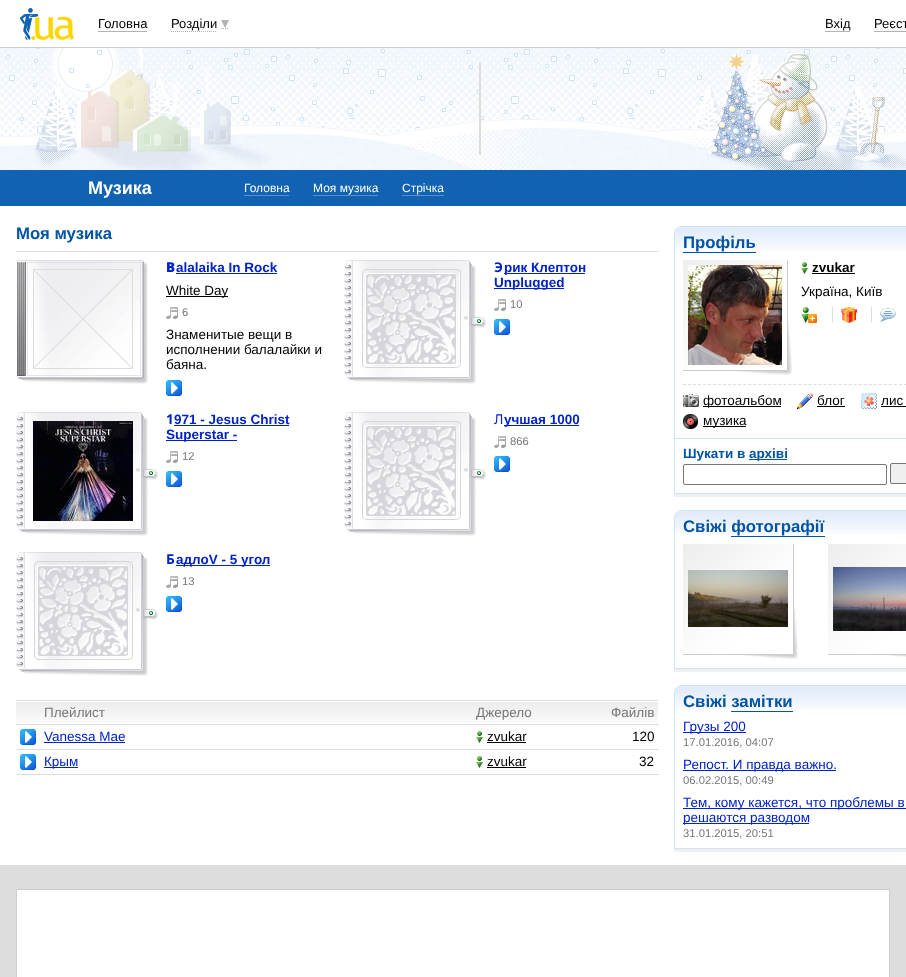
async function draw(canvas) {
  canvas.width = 906
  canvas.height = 977
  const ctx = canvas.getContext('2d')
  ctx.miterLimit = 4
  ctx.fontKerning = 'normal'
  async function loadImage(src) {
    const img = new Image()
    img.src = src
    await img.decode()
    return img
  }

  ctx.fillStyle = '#fff'
  ctx.fillRect(0, 0, 906, 977)
  ctx.fillStyle = '#ccc'
  ctx.fillRect(0, 47, 906, 1)
  ctx.drawImage(await loadImage('image0.png'), 20, 8, 54, 32)
  ctx.font = '13px Liberation Sans'
  ctx.fillStyle = '#000'
  ctx.fillText('Головна', 98, 28)
  ctx.fillStyle = '#b3b3b3'
  ctx.fillRect(98, 31, 49, 1)
  ctx.beginPath()
  ctx.moveTo(171, 31.5)
  ctx.lineTo(217, 31.5)
  ctx.moveTo(221, 28.5)
  ctx.lineTo(229, 28.5)
  ctx.strokeStyle = '#b3b3b3'
  ctx.setLineDash([1, 1])
  ctx.stroke()
  ctx.fillStyle = '#000'
  ctx.fillText('Розділи', 171, 28)
  ctx.fillStyle = '#b3b3b3'
  ctx.beginPath()
  ctx.moveTo(221, 20)
  ctx.lineTo(229, 20)
  ctx.lineTo(225, 28)
  ctx.closePath()
  ctx.fill()
  ctx.fillStyle = '#000'
  ctx.fillText('Вхід', 825, 28)
  ctx.fillStyle = '#b3b3b3'
  ctx.fillRect(825, 31, 25, 1)
  ctx.fillStyle = '#000'
  ctx.fillText('Реєст', 874, 28)
  ctx.fillStyle = '#b3b3b3'
  ctx.fillRect(874, 31, 32, 1)
  ctx.drawImage(await loadImage('image1.png'), 0, 48, 906, 122)
  ctx.fillStyle = '#ddd'
  ctx.fillRect(479, 63, 2, 92)
  ctx.fillStyle = '#1162b3'
  ctx.fillRect(0, 170, 906, 36)
  ctx.font = 'bold 18px Liberation Sans'
  ctx.fillStyle = '#fff'
  ctx.fillText('Музика', 88, 194)
  ctx.font = '12px Liberation Sans'
  ctx.fillText('Головна', 244, 192)
  ctx.fillStyle = '#5891ca'
  ctx.fillRect(244, 195, 45, 1)
  ctx.fillStyle = '#fff'
  ctx.fillText('Моя музика', 313, 192)
  ctx.fillStyle = '#5891ca'
  ctx.fillRect(313, 195, 65, 1)
  ctx.fillStyle = '#fff'
  ctx.fillText('Стрічка', 402, 192)
  ctx.fillStyle = '#5891ca'
  ctx.fillRect(402, 195, 42, 1)
  ctx.font = 'bold 16.75px Liberation Sans'
  ctx.fillStyle = '#0053a5'
  ctx.fillText('Моя музика', 16, 239)
  ctx.fillStyle = '#ddd'
  ctx.fillRect(16, 251, 642, 1)
  ctx.drawImage(await loadImage('image2.png'), 17, 260, 131, 124)
  ctx.drawImage(await loadImage('image3.png'), 33, 269, 100, 100)
  ctx.font = '900 13.5px Noto Sans'
  ctx.fillStyle = '#02c'
  ctx.fillText('B', 166, 272)
  ctx.font = 'bold 13.5px Liberation Sans'
  ctx.fillText('alalaika In Rock', 176, 272)
  ctx.fillRect(176, 273, 101, 1)
  ctx.fillStyle = '#000'
  ctx.fillRect(166, 296, 62, 1)
  ctx.font = '13.5px Liberation Sans'
  ctx.fillText('White Day', 166, 295)
  ctx.drawImage(await loadImage('image4.png'), 166, 307, 12, 12)
  ctx.font = '11.25px Liberation Sans'
  ctx.fillStyle = '#777'
  ctx.fillText('6', 182, 316)
  ctx.font = '13.5px Liberation Sans'
  ctx.fillStyle = '#000'
  ctx.fillText('Знаменитые вещи в', 166, 339)
  ctx.fillText('исполнении балалайки и', 166, 354)
  ctx.fillText('баяна.', 166, 369)
  ctx.drawImage(await loadImage('image5.png'), 166, 380, 16, 16)
  ctx.drawImage(await loadImage('image6.png'), 344, 260, 142, 124)
  ctx.drawImage(await loadImage('image7.png'), 362, 269, 99, 99)
  ctx.font = 'bold 13.5px Noto Sans'
  ctx.fillStyle = '#02c'
  ctx.fillText('Э', 494, 272)
  ctx.fillRect(504, 273, 81, 1)
  ctx.font = 'bold 13.5px Liberation Sans'
  ctx.fillText('рик Клептон', 504, 272)
  ctx.fillRect(494, 288, 70, 1)
  ctx.fillText('Unplugged', 494, 287)
  ctx.drawImage(await loadImage('image4.png'), 494, 299, 12, 12)
  ctx.font = '11.25px Liberation Sans'
  ctx.fillStyle = '#777'
  ctx.fillText('10', 510, 308)
  ctx.drawImage(await loadImage('image5.png'), 494, 319, 16, 16)
  ctx.drawImage(await loadImage('image6.png'), 16, 412, 142, 124)
  ctx.drawImage(await loadImage('image8.png'), 33, 421, 100, 100)
  ctx.font = 'bold 13.5px Noto Sans'
  ctx.fillStyle = '#02c'
  ctx.fillText('1', 166, 424)
  ctx.font = 'bold 13.5px Liberation Sans'
  ctx.fillText('971 - Jesus Christ', 174, 424)
  ctx.fillRect(174, 425, 115, 1)
  ctx.fillRect(166, 440, 71, 1)
  ctx.fillText('Superstar -', 166, 439)
  ctx.drawImage(await loadImage('image4.png'), 166, 451, 12, 12)
  ctx.font = '11.25px Liberation Sans'
  ctx.fillStyle = '#777'
  ctx.fillText('12', 182, 460)
  ctx.drawImage(await loadImage('image5.png'), 166, 471, 16, 16)
  ctx.drawImage(await loadImage('image6.png'), 344, 412, 142, 124)
  ctx.drawImage(await loadImage('image7.png'), 362, 421, 99, 99)
  ctx.font = '13.5px Noto Sans'
  ctx.fillStyle = '#02c'
  ctx.fillText('Л', 494, 424)
  ctx.fillRect(504, 425, 75, 1)
  ctx.font = 'bold 13.5px Liberation Sans'
  ctx.fillText('учшая 1000', 504, 424)
  ctx.drawImage(await loadImage('image4.png'), 494, 436, 12, 12)
  ctx.font = '11.25px Liberation Sans'
  ctx.fillStyle = '#777'
  ctx.fillText('866', 510, 445)
  ctx.drawImage(await loadImage('image5.png'), 494, 456, 16, 16)
  ctx.drawImage(await loadImage('image6.png'), 16, 552, 142, 124)
  ctx.drawImage(await loadImage('image7.png'), 34, 561, 99, 99)
  ctx.font = 'bold 13.5px Noto Sans'
  ctx.fillStyle = '#02c'
  ctx.fillText('Б', 166, 564)
  ctx.fillRect(176, 565, 94, 1)
  ctx.font = 'bold 13.5px Liberation Sans'
  ctx.fillText('адлоV - 5 угол', 176, 564)
  ctx.drawImage(await loadImage('image4.png'), 166, 576, 12, 12)
  ctx.font = '11.25px Liberation Sans'
  ctx.fillStyle = '#777'
  ctx.fillText('13', 182, 585)
  ctx.drawImage(await loadImage('image5.png'), 166, 596, 16, 16)
  ctx.fillStyle = '#ddd'
  ctx.fillRect(16, 700, 642, 1)
  ctx.fillRect(16, 774, 643, 1)
  ctx.drawImage(await loadImage('image9.png'), 16, 702, 24, 21)
  ctx.drawImage(await loadImage('image10.png'), 40, 702, 432, 21)
  ctx.font = '13.5px Liberation Sans'
  ctx.fillStyle = '#777'
  ctx.fillText('Плейлист', 44, 717)
  ctx.drawImage(await loadImage('image11.png'), 472, 702, 135, 21)
  ctx.fillText('Джерело', 476, 717)
  ctx.drawImage(await loadImage('image12.png'), 607, 702, 51, 21)
  ctx.fillStyle = '#ddd'
  ctx.fillRect(16, 724, 643, 1)
  ctx.fillStyle = '#777'
  ctx.fillText('Файлів', 611, 717)
  ctx.drawImage(await loadImage('image5.png'), 20, 729, 16, 16)
  ctx.fillStyle = '#02c'
  ctx.fillText('Vanessa Mae', 44, 741)
  ctx.fillRect(44, 742, 81, 1)
  ctx.drawImage(await loadImage('image13.png'), 476, 731, 7, 12)
  ctx.fillStyle = '#000'
  ctx.fillText('zvukar', 487, 741)
  ctx.fillRect(487, 742, 39, 1)
  ctx.fillStyle = '#ddd'
  ctx.fillRect(16, 749, 643, 1)
  ctx.fillStyle = '#000'
  ctx.fillText('120', 632, 741)
  ctx.drawImage(await loadImage('image5.png'), 20, 754, 16, 16)
  ctx.fillStyle = '#02c'
  ctx.fillRect(44, 767, 34, 1)
  ctx.fillText('Крым', 44, 766)
  ctx.drawImage(await loadImage('image13.png'), 476, 756, 7, 12)
  ctx.fillStyle = '#000'
  ctx.fillText('zvukar', 487, 766)
  ctx.fillRect(487, 767, 39, 1)
  ctx.fillText('32', 639, 766)
  ctx.fillStyle = '#f0f0f0'
  ctx.fillRect(674, 494, 232, 3)
  ctx.drawImage(await loadImage('image15.png'), 675, 227, 231, 24)
  ctx.strokeStyle = '#cee3f7'
  ctx.setLineDash([])
  ctx.strokeRect(674.5, 226.5, 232, 267)
  ctx.drawImage(await loadImage('image14.png'), 674, 226, 7, 7)
  ctx.font = 'bold 16.75px Liberation Sans'
  ctx.fillStyle = '#0053a5'
  ctx.fillText('Профіль', 683, 248)
  ctx.fillRect(683, 252, 73, 1)
  ctx.drawImage(await loadImage('image16.png'), 683, 260, 109, 115)
  ctx.drawImage(await loadImage('image17.png'), 688, 265, 94, 100)
  ctx.drawImage(await loadImage('image13.png'), 801, 262, 7, 12)
  ctx.font = 'bold 13.5px Liberation Sans'
  ctx.fillStyle = '#000'
  ctx.fillText('zvukar', 812, 272)
  ctx.fillRect(812, 273, 43, 1)
  ctx.font = '13.5px Liberation Sans'
  ctx.fillText('Україна, Київ', 801, 296)
  ctx.drawImage(await loadImage('image18.png'), 801, 307, 16, 16)
  ctx.fillStyle = '#ddd'
  ctx.fillRect(832, 307, 1, 15)
  ctx.drawImage(await loadImage('image19.png'), 841, 307, 16, 16)
  ctx.fillRect(871, 307, 1, 15)
  ctx.drawImage(await loadImage('image20.png'), 880, 308, 16, 14)
  ctx.beginPath()
  ctx.moveTo(683, 384.5)
  ctx.lineTo(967, 384.5)
  ctx.strokeStyle = '#ddd'
  ctx.setLineDash([3, 2.02])
  ctx.stroke()
  ctx.drawImage(await loadImage('image21.png'), 683, 394, 16, 13)
  ctx.fillStyle = '#000'
  ctx.fillRect(703, 406, 78, 1)
  ctx.fillText('фотоальбом', 703, 405)
  ctx.drawImage(await loadImage('image22.png'), 797, 393, 16, 16)
  ctx.fillText('блог', 817, 405)
  ctx.fillRect(817, 406, 28, 1)
  ctx.drawImage(await loadImage('image23.png'), 861, 393, 16, 16)
  ctx.fillText('лис', 881, 405)
  ctx.fillRect(881, 406, 25, 1)
  ctx.drawImage(await loadImage('image24.png'), 683, 414, 15, 15)
  ctx.fillRect(703, 426, 43, 1)
  ctx.fillText('музика', 703, 425)
  ctx.fillStyle = '#cee3f7'
  ctx.fillRect(675, 438, 231, 1)
  ctx.font = 'bold 13.5px Liberation Sans'
  ctx.fillStyle = '#0053a5'
  ctx.fillText('Шукати в', 683, 458)
  ctx.fillRect(749, 459, 38, 1)
  ctx.fillText('архіві', 749, 458)
  ctx.beginPath()
  ctx.roundRect(683.5, 464.5, 203, 20, 1.5)
  ctx.strokeStyle = '#767676'
  ctx.setLineDash([])
  ctx.stroke()
  ctx.fillStyle = '#efefef'
  ctx.beginPath()
  ctx.roundRect(890.5, 463.5, 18, 20, 1.5)
  ctx.fill()
  ctx.stroke()
  ctx.fillStyle = '#f0f0f0'
  ctx.fillRect(674, 669, 232, 3)
  ctx.drawImage(await loadImage('image15.png'), 675, 511, 231, 24)
  ctx.strokeStyle = '#cee3f7'
  ctx.strokeRect(674.5, 510.5, 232, 158)
  ctx.drawImage(await loadImage('image14.png'), 674, 510, 7, 7)
  ctx.font = 'bold 16.75px Liberation Sans'
  ctx.fillStyle = '#0053a5'
  ctx.fillText('Свіжі фотографії', 683, 532)
  ctx.fillRect(731, 536, 94, 1)
  ctx.drawImage(await loadImage('image25.png'), 683, 544, 115, 115)
  ctx.drawImage(await loadImage('image26.png'), 688, 570, 100, 57)
  ctx.drawImage(await loadImage('image27.png'), 828, 544, 78, 113)
  ctx.drawImage(await loadImage('image28.png'), 833, 567, 73, 64)
  ctx.fillStyle = '#f0f0f0'
  ctx.fillRect(674, 849, 232, 3)
  ctx.drawImage(await loadImage('image15.png'), 675, 686, 231, 24)
  ctx.strokeRect(674.5, 685.5, 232, 163)
  ctx.drawImage(await loadImage('image14.png'), 674, 685, 7, 7)
  ctx.fillStyle = '#0053a5'
  ctx.fillText('Свіжі замітки', 683, 707)
  ctx.fillRect(731, 711, 62, 1)
  ctx.fillStyle = '#02c'
  ctx.fillRect(683, 732, 63, 1)
  ctx.font = '13.5px Liberation Sans'
  ctx.fillText('Грузы 200', 683, 731)
  ctx.font = '11.25px Liberation Sans'
  ctx.fillStyle = '#777'
  ctx.fillText('17.01.2016, 04:07', 683, 746)
  ctx.fillStyle = '#02c'
  ctx.fillRect(683, 770, 153, 1)
  ctx.font = '13.5px Liberation Sans'
  ctx.fillText('Репост. И правда важно.', 683, 769)
  ctx.font = '11.25px Liberation Sans'
  ctx.fillStyle = '#777'
  ctx.fillText('06.02.2015, 00:49', 683, 784)
  ctx.fillStyle = '#02c'
  ctx.fillRect(683, 808, 223, 1)
  ctx.font = '13.5px Liberation Sans'
  ctx.fillText('Тем, кому кажется, что проблемы в', 683, 807)
  ctx.fillRect(683, 823, 126, 1)
  ctx.fillText('решаются разводом', 683, 822)
  ctx.font = '11.25px Liberation Sans'
  ctx.fillStyle = '#777'
  ctx.fillText('31.01.2015, 20:51', 683, 837)
  ctx.fillStyle = '#ddd'
  ctx.fillRect(0, 865, 906, 112)
  ctx.fillStyle = '#fff'
  ctx.beginPath()
  ctx.rect(16.5, 889.5, 873, 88)
  ctx.fill()
  ctx.strokeStyle = '#ccc'
  ctx.stroke()
}

draw(document.querySelector('canvas'))
